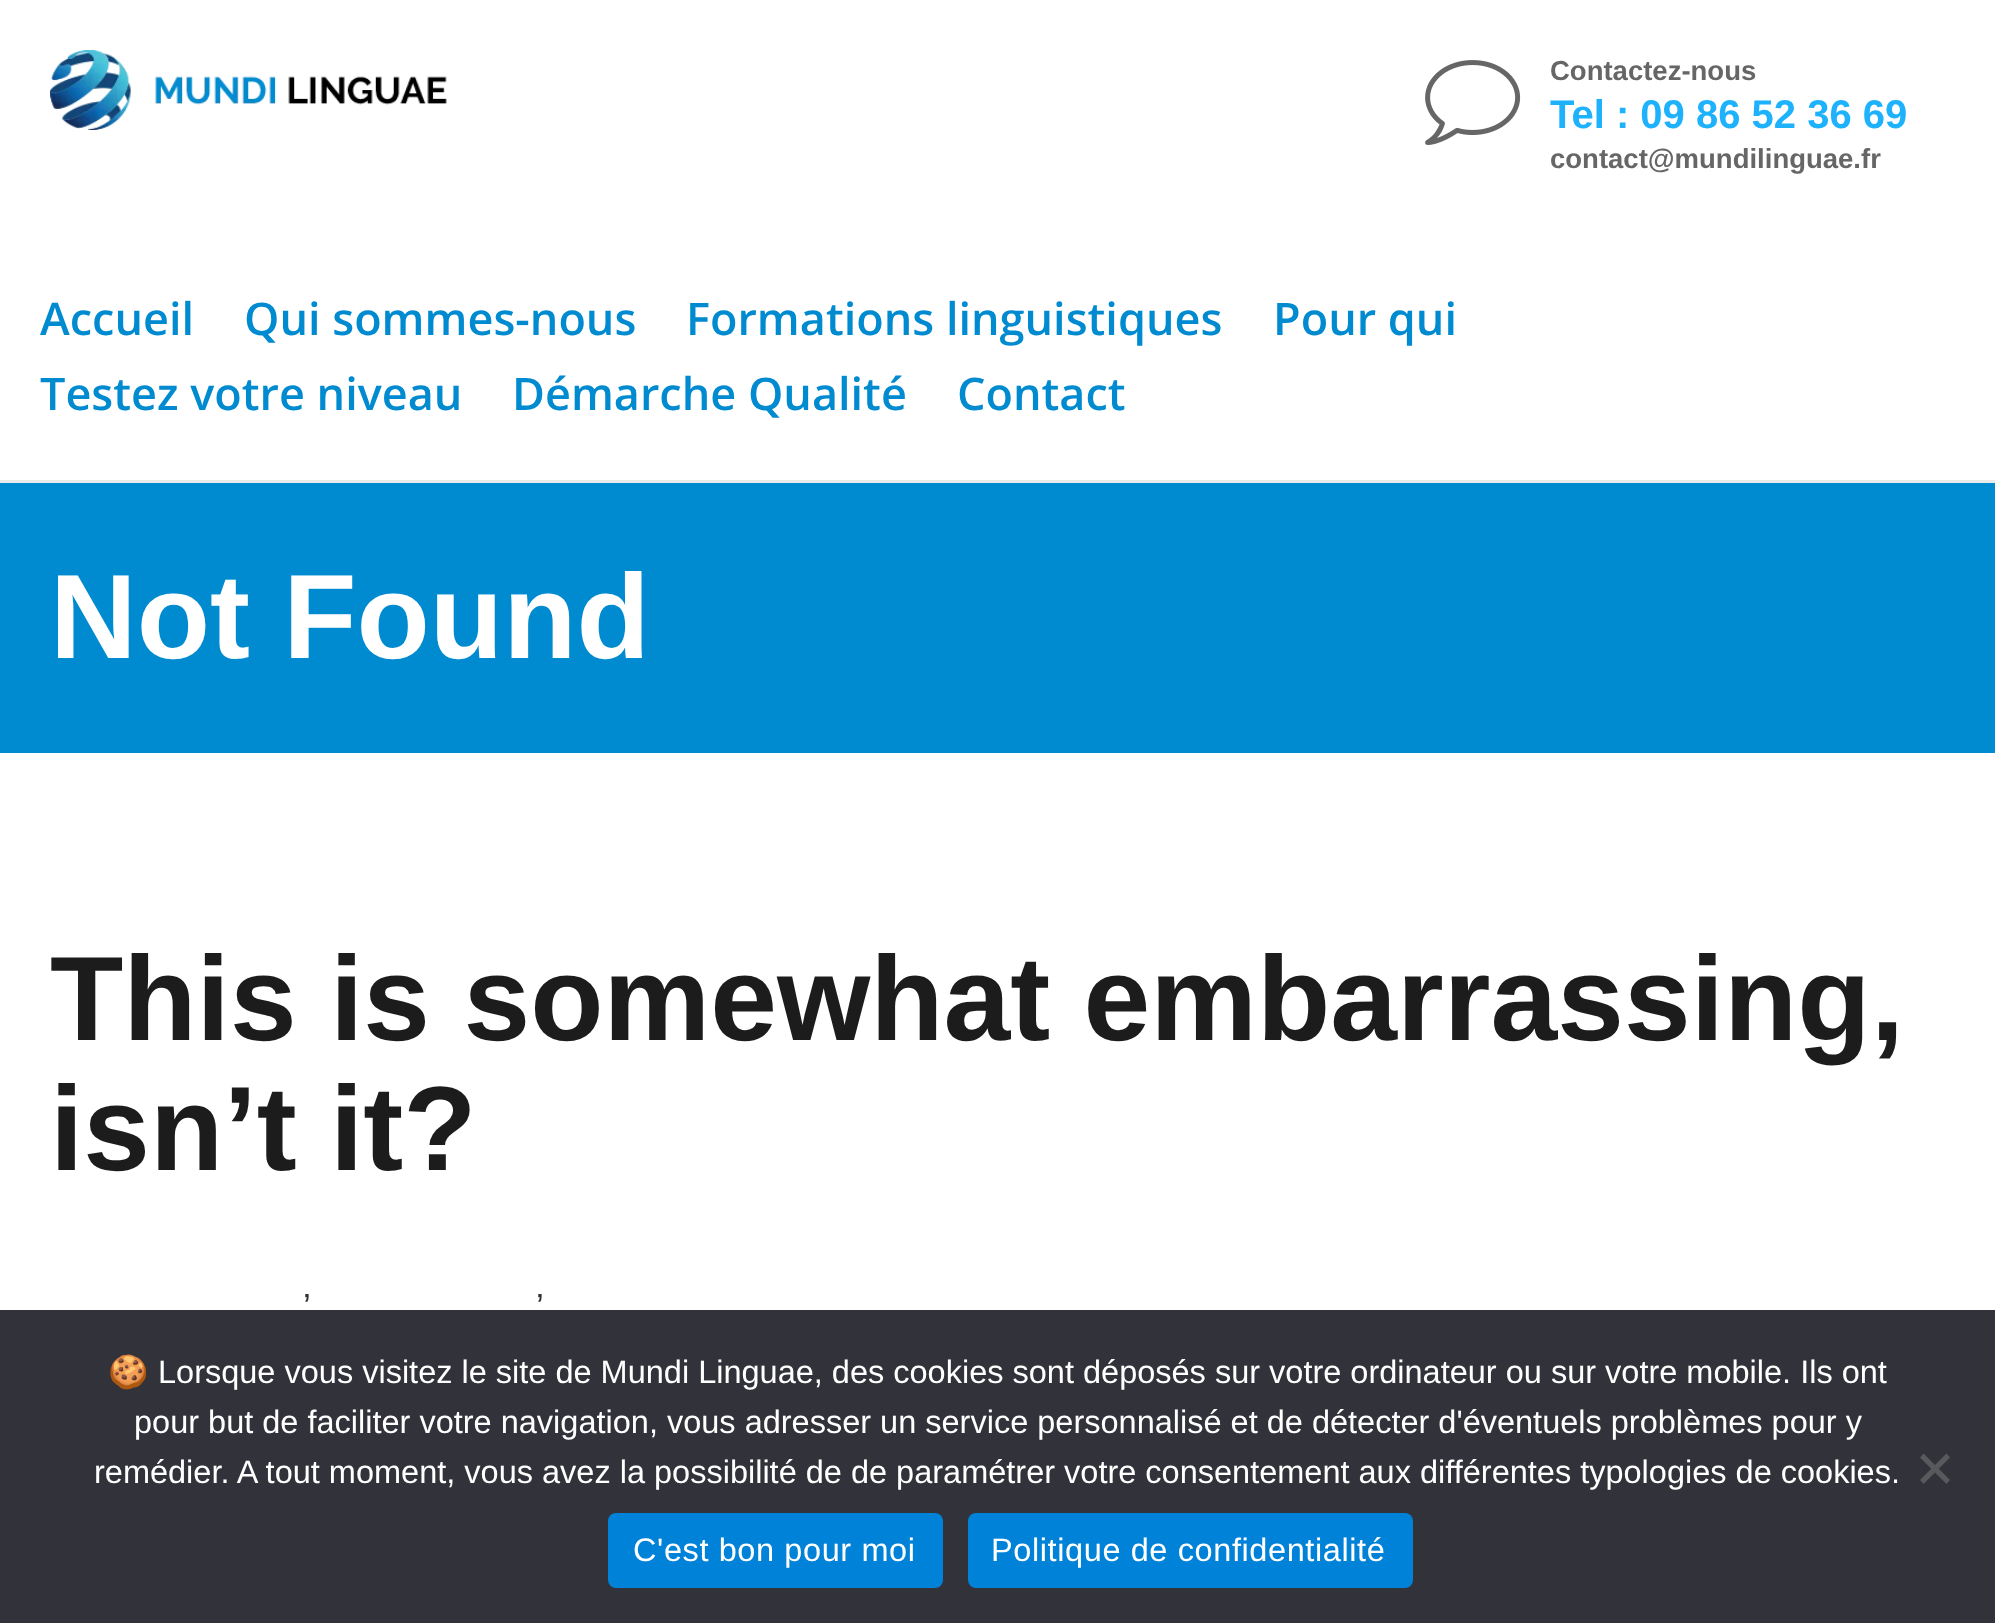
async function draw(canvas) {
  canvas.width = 1995
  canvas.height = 1623
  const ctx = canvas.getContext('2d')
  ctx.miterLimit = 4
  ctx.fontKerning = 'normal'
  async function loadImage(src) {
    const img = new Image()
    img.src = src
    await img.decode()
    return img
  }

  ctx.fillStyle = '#fff'
  ctx.fillRect(0, 0, 1995, 1623)
  ctx.fillStyle = '#ebebeb'
  ctx.fillRect(0, 480, 1995, 3)
  ctx.drawImage(await loadImage('image0.png'), 50, 50, 397, 80)
  ctx.drawImage(await loadImage('image1.png'), 1425, 60, 96, 85)
  ctx.font = 'bold 27.5px Liberation Sans'
  ctx.fillStyle = '#666'
  ctx.fillText('Contactez-nous', 1550, 80)
  ctx.font = 'bold 40px Liberation Sans'
  ctx.fillStyle = '#1eb2fd'
  ctx.fillText('Tel : 09 86 52 36 69', 1550, 128)
  ctx.font = 'bold 27.5px Liberation Sans'
  ctx.fillStyle = '#666'
  ctx.fillText('contact@mundilinguae.fr', 1550, 168)
  ctx.font = '600 45px Open Sans'
  ctx.fillStyle = '#008bd1'
  ctx.fillText('Accueil', 40, 335)
  ctx.fillText('Qui sommes-nous', 244, 335)
  ctx.fillText('Formations linguistiques', 686, 335)
  ctx.fillText('Pour qui', 1273, 335)
  ctx.fillText('Testez votre niveau', 40, 410)
  ctx.fillText('Démarche Qualité', 512, 410)
  ctx.fillText('Contact', 957, 410)
  ctx.fillRect(0, 483, 1995, 270)
  ctx.font = 'bold 120px Liberation Sans'
  ctx.fillStyle = '#fff'
  ctx.fillText('Not Found', 50, 658)
  ctx.fillStyle = '#1c1c1c'
  ctx.fillText('This is somewhat embarrassing,', 50, 1040)
  ctx.fillText('isn’t it?', 50, 1170)
  ctx.font = '35px Liberation Sans'
  ctx.fillStyle = '#333'
  ctx.fillText('’', 303, 1318)
  ctx.fillText('’', 536, 1318)
  ctx.fillStyle = '#32323a'
  ctx.fillRect(0, 1310, 1995, 313)
  ctx.font = '32.5px Noto Color Emoji'
  ctx.fillStyle = '#fff'
  ctx.fillText('🍪', 108, 1383)
  ctx.font = '32.5px Liberation Sans'
  ctx.fillText('Lorsque vous visitez le site de Mundi Linguae, des cookies sont déposés sur votre ordinateur ou sur votre mobile. Ils ont', 158, 1383)
  ctx.fillText('pour but de faciliter votre navigation, vous adresser un service personnalisé et de détecter d\'éventuels problèmes pour y', 134, 1433)
  ctx.fillText('remédier. A tout moment, vous avez la possibilité de de paramétrer votre consentement aux différentes typologies de cookies.', 94, 1483)
  ctx.fillStyle = '#59595d'
  ctx.beginPath()
  ctx.moveTo(1946.5, 1453.5)
  ctx.lineTo(1950, 1457.5)
  ctx.lineTo(1923.5, 1484)
  ctx.lineTo(1920, 1480)
  ctx.closePath()
  ctx.fill()
  ctx.beginPath()
  ctx.moveTo(1920, 1457.5)
  ctx.lineTo(1923.5, 1453.5)
  ctx.lineTo(1950, 1480)
  ctx.lineTo(1946.5, 1484)
  ctx.closePath()
  ctx.fill()
  ctx.fillStyle = '#0082d8'
  ctx.beginPath()
  ctx.roundRect(608, 1513, 335, 75, 8)
  ctx.fill()
  ctx.letterSpacing = '0.6px'
  ctx.fillStyle = '#fff'
  ctx.fillText('C\'est bon pour moi', 633, 1561)
  ctx.fillStyle = '#0082d8'
  ctx.beginPath()
  ctx.roundRect(968, 1513, 445, 75, 8)
  ctx.fill()
  ctx.fillStyle = '#fff'
  ctx.fillText('Politique de confidentialité', 991, 1561)
}

draw(document.querySelector('canvas'))
